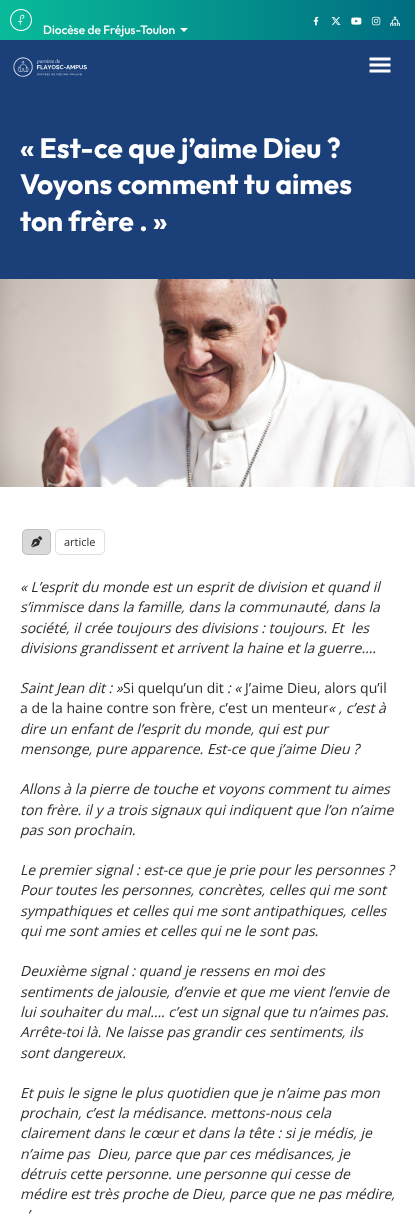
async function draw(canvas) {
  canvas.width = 415
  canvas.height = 1214
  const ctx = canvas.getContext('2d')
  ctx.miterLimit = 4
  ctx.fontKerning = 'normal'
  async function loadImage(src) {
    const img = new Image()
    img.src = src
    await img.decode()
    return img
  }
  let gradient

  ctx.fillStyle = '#1b4079'
  ctx.fillRect(0, 0, 415, 1214)
  gradient = ctx.createLinearGradient(0, 20, 415, 20)
  gradient.addColorStop(0, '#09bb9a')
  gradient.addColorStop(1, '#006d81')
  ctx.fillStyle = gradient
  ctx.fillRect(0, 0, 415, 40)
  ctx.drawImage(await loadImage('image0.png'), 313, 16, 6, 10)
  ctx.drawImage(await loadImage('image1.png'), 331, 17, 10, 8)
  ctx.drawImage(await loadImage('image2.png'), 351, 17, 11, 8)
  ctx.drawImage(await loadImage('image3.png'), 371, 16, 10, 10)
  ctx.drawImage(await loadImage('image4.png'), 390, 16, 10, 10)
  ctx.drawImage(await loadImage('image5.png'), 10, 9, 22, 22)
  ctx.font = '100 12px Outfit'
  ctx.fillStyle = '#fff'
  ctx.fillText('Diocèse de Fréjus-Toulon', 43, 34)
  ctx.beginPath()
  ctx.moveTo(180, 28)
  ctx.lineTo(188, 28)
  ctx.lineTo(184, 32)
  ctx.closePath()
  ctx.fill()
  ctx.drawImage(await loadImage('image6.png'), 13, 57, 74, 20)
  ctx.drawImage(await loadImage('image7.png'), 369, 57, 22, 16)
  ctx.font = 'bold 28px Outfit'
  ctx.fillText('« Est-ce que j’aime Dieu ?', 20, 158)
  ctx.fillText('Voyons comment tu aimes', 20, 194)
  ctx.fillText('ton frère . »', 20, 231)
  ctx.fillRect(0, 487, 415, 727)
  ctx.drawImage(await loadImage('image8.png'), 0, 279, 415, 208)
  ctx.fillStyle = '#d9d9d9'
  ctx.beginPath()
  ctx.roundRect(22, 529, 29, 26, 5)
  ctx.fill()
  ctx.beginPath()
  ctx.roundRect(22.5, 529.5, 28, 25, 4.5)
  ctx.strokeStyle = '#2d2d2d26'
  ctx.stroke()
  ctx.drawImage(await loadImage('image9.png'), 31, 536, 12, 12)
  ctx.beginPath()
  ctx.roundRect(55.5, 529.5, 49, 25, 4.5)
  ctx.strokeStyle = '#e0e0e0'
  ctx.stroke()
  ctx.font = '11px Open Sans'
  ctx.fillStyle = '#2d2d2d'
  ctx.fillText('article', 64, 546)
  ctx.font = 'italic 14px Open Sans'
  ctx.fillText('« L’esprit du monde est un esprit de division et quand il', 20, 592)
  ctx.fillText('s’immisce dans la famille, dans la communauté, dans la', 20, 612)
  ctx.fillText('société, il crée toujours des divisions : toujours. Et  les', 20, 633)
  ctx.fillText('divisions grandissent et arrivent la haine et la guerre….', 20, 653)
  ctx.fillText('Saint Jean dit : »', 20, 693)
  ctx.font = '14px Open Sans'
  ctx.fillText('Si quelqu’un dit', 123, 693)
  ctx.font = 'italic 14px Open Sans'
  ctx.fillText(': «', 227, 693)
  ctx.font = '14px Open Sans'
  ctx.fillText('J’aime Dieu, alors qu’il', 245, 693)
  ctx.fillText('a de la haine contre son frère, c’est un menteur', 20, 713)
  ctx.font = 'italic 14px Open Sans'
  ctx.fillText('« , c’est à', 328, 713)
  ctx.fillText('dire un enfant de l’esprit du monde, qui est pur', 20, 734)
  ctx.fillText('mensonge, pure apparence. Est-ce que j’aime Dieu ?', 20, 754)
  ctx.fillText('Allons à la pierre de touche et voyons comment tu aimes', 20, 794)
  ctx.fillText('ton frère. il y a trois signaux qui indiquent que l’on n’aime', 20, 815)
  ctx.fillText('pas son prochain.', 20, 835)
  ctx.fillText('Le premier signal : est-ce que je prie pour les personnes ?', 20, 875)
  ctx.fillText('Pour toutes les personnes, concrètes, celles qui me sont', 20, 895)
  ctx.fillText('sympathiques et celles qui me sont antipathiques, celles', 20, 916)
  ctx.fillText('qui me sont amies et celles qui ne le sont pas.', 20, 936)
  ctx.fillText('Deuxième signal : quand je ressens en moi des', 20, 976)
  ctx.fillText('sentiments de jalousie, d’envie et que me vient l’envie de', 20, 997)
  ctx.fillText('lui souhaiter du mal…. c’est un signal que tu n’aimes pas.', 20, 1017)
  ctx.fillText('Arrête-toi là. Ne laisse pas grandir ces sentiments, ils', 20, 1037)
  ctx.fillText('sont dangereux.', 20, 1058)
  ctx.fillText('Et puis le signe le plus quotidien que je n’aime pas mon', 20, 1098)
  ctx.fillText('prochain, c’est la médisance. mettons-nous cela', 20, 1118)
  ctx.fillText('clairement dans le cœur et dans la tête : si je médis, je', 20, 1138)
  ctx.fillText('n’aime pas  Dieu, parce que par ces médisances, je', 20, 1159)
  ctx.fillText('détruis cette personne. une personne qui cesse de', 20, 1179)
  ctx.fillText('médire est très proche de Dieu, parce que ne pas médire,', 20, 1199)
  ctx.fillText('’', 27, 1220)
}

draw(document.querySelector('canvas'))
